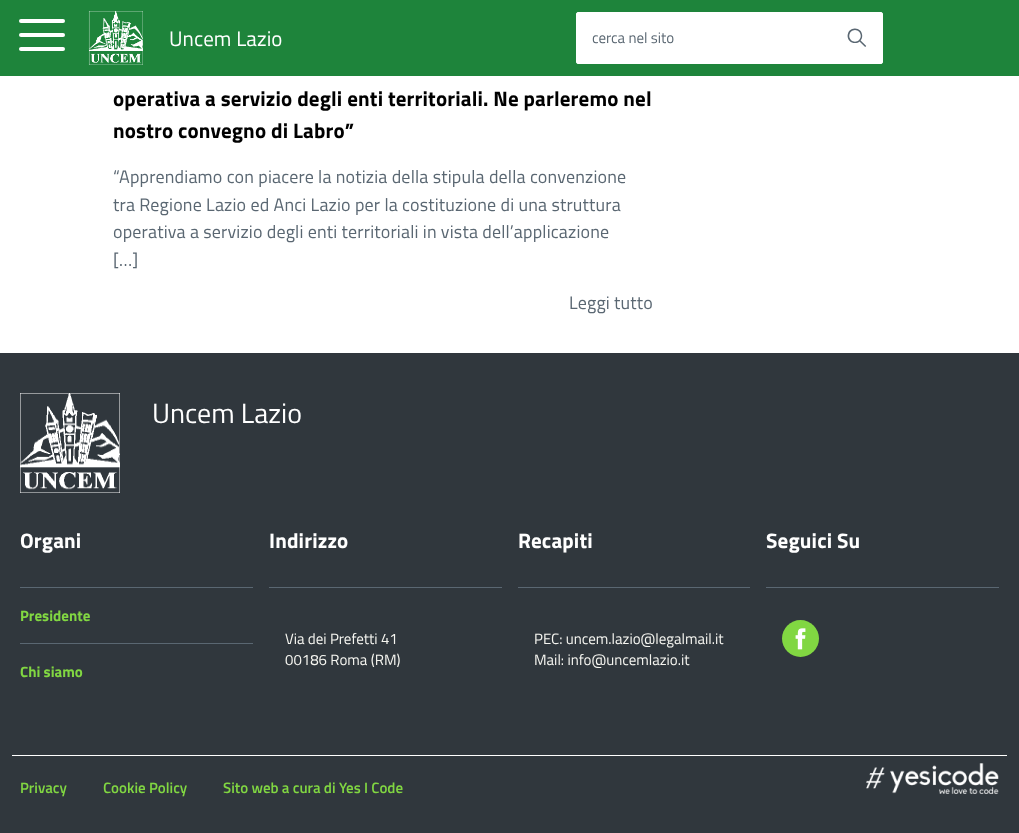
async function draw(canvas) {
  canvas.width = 1019
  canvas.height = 833
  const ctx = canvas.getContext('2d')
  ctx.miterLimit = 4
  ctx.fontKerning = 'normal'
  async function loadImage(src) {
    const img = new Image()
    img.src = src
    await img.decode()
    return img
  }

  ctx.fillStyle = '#fff'
  ctx.fillRect(0, 0, 1019, 833)
  ctx.fillStyle = '#1e843b'
  ctx.fillRect(0, 0, 1019, 76)
  ctx.fillStyle = '#fff'
  ctx.beginPath()
  ctx.roundRect(19, 33, 46, 4, 2)
  ctx.fill()
  ctx.beginPath()
  ctx.roundRect(19, 19, 46, 4, 2)
  ctx.fill()
  ctx.beginPath()
  ctx.roundRect(19, 47, 46, 4, 2)
  ctx.fill()
  ctx.drawImage(await loadImage('image0.png'), 88, 11, 55, 54)
  ctx.letterSpacing = '0.1px'
  ctx.font = '21px Titillium Web'
  ctx.fillText('Uncem Lazio', 169, 46)
  ctx.beginPath()
  ctx.roundRect(576.5, 12.5, 306, 51, 1.5)
  ctx.fill()
  ctx.strokeStyle = '#fff'
  ctx.stroke()
  ctx.letterSpacing = '0px'
  ctx.font = '15px Titillium Web'
  ctx.fillStyle = '#5a6772'
  ctx.fillText('cerca nel sito', 592, 43)
  ctx.font = 'bold 18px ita'
  ctx.save()
  ctx.translate(865, 47)
  ctx.rotate(-90 * Math.PI / 180)
  ctx.fillText('🔍', 0, 0)
  ctx.restore()
  ctx.letterSpacing = '0.15px'
  ctx.font = 'bold 21px Titillium Web'
  ctx.fillStyle = '#000'
  ctx.fillText('operativa a servizio degli enti territoriali. Ne parleremo nel', 113, 106)
  ctx.fillText('nostro convegno di Labro”', 113, 138)
  ctx.letterSpacing = '0.18px'
  ctx.font = '18px Titillium Web'
  ctx.fillStyle = '#5a6772'
  ctx.fillText('“Apprendiamo con piacere la notizia della stipula della convenzione', 113, 183)
  ctx.fillText('tra Regione Lazio ed Anci Lazio per la costituzione di una struttura', 113, 211)
  ctx.fillText('operativa a servizio degli enti territoriali in vista dell’applicazione', 113, 238)
  ctx.fillText('[…]', 113, 266)
  ctx.fillText('Leggi tutto', 569, 309)
  ctx.fillStyle = '#30373d'
  ctx.fillRect(0, 353, 1019, 480)
  ctx.drawImage(await loadImage('image1.png'), 20, 393, 100, 100)
  ctx.letterSpacing = '0px'
  ctx.font = '28px Titillium Web'
  ctx.fillStyle = '#fff'
  ctx.fillText('Uncem Lazio', 152, 423)
  ctx.letterSpacing = '0.15px'
  ctx.font = 'bold 21px Titillium Web'
  ctx.fillText('Organi', 20, 548)
  ctx.fillStyle = '#5a6772'
  ctx.fillRect(20, 587, 233, 1)
  ctx.letterSpacing = '0px'
  ctx.font = 'bold 15px Titillium Web'
  ctx.fillStyle = '#81d742'
  ctx.fillText('Presidente', 20, 621)
  ctx.fillStyle = '#5a6772'
  ctx.fillRect(20, 643, 233, 1)
  ctx.fillStyle = '#81d742'
  ctx.fillText('Chi siamo', 20, 677)
  ctx.letterSpacing = '0.15px'
  ctx.font = 'bold 21px Titillium Web'
  ctx.fillStyle = '#fff'
  ctx.fillText('Indirizzo', 269, 548)
  ctx.fillStyle = '#5a6772'
  ctx.fillRect(269, 587, 233, 1)
  ctx.letterSpacing = '0px'
  ctx.font = '15px Titillium Web'
  ctx.fillStyle = '#f5f5f0'
  ctx.fillText('Via dei Prefetti 41', 285, 644)
  ctx.fillText('00186 Roma (RM)', 285, 665)
  ctx.letterSpacing = '0.15px'
  ctx.font = 'bold 21px Titillium Web'
  ctx.fillStyle = '#fff'
  ctx.fillText('Recapiti', 518, 548)
  ctx.fillStyle = '#5a6772'
  ctx.fillRect(518, 587, 232, 1)
  ctx.letterSpacing = '0px'
  ctx.font = '15px Titillium Web'
  ctx.fillStyle = '#f5f5f0'
  ctx.fillText('PEC: uncem.lazio@legalmail.it', 534, 644)
  ctx.fillText('Mail: info@uncemlazio.it', 534, 665)
  ctx.letterSpacing = '0.15px'
  ctx.font = 'bold 21px Titillium Web'
  ctx.fillStyle = '#fff'
  ctx.fillText('Seguici Su', 766, 548)
  ctx.fillStyle = '#5a6772'
  ctx.fillRect(766, 587, 233, 1)
  ctx.fillStyle = '#81d742'
  ctx.beginPath()
  ctx.arc(800.5, 638.5, 18.5, 0, 2 * Math.PI)
  ctx.fill()
  ctx.drawImage(await loadImage('image2.png'), 795, 628, 11, 22)
  ctx.fillStyle = '#fff'
  ctx.fillRect(12, 755, 995, 1)
  ctx.letterSpacing = '0px'
  ctx.font = '600 15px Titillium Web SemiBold'
  ctx.fillStyle = '#81d742'
  ctx.fillText('Privacy', 20, 793)
  ctx.fillText('Cookie Policy', 103, 793)
  ctx.fillText('Sito web a cura di Yes I Code', 223, 793)
  ctx.drawImage(await loadImage('image3.png'), 866, 763, 133, 31)
}

draw(document.querySelector('canvas'))
